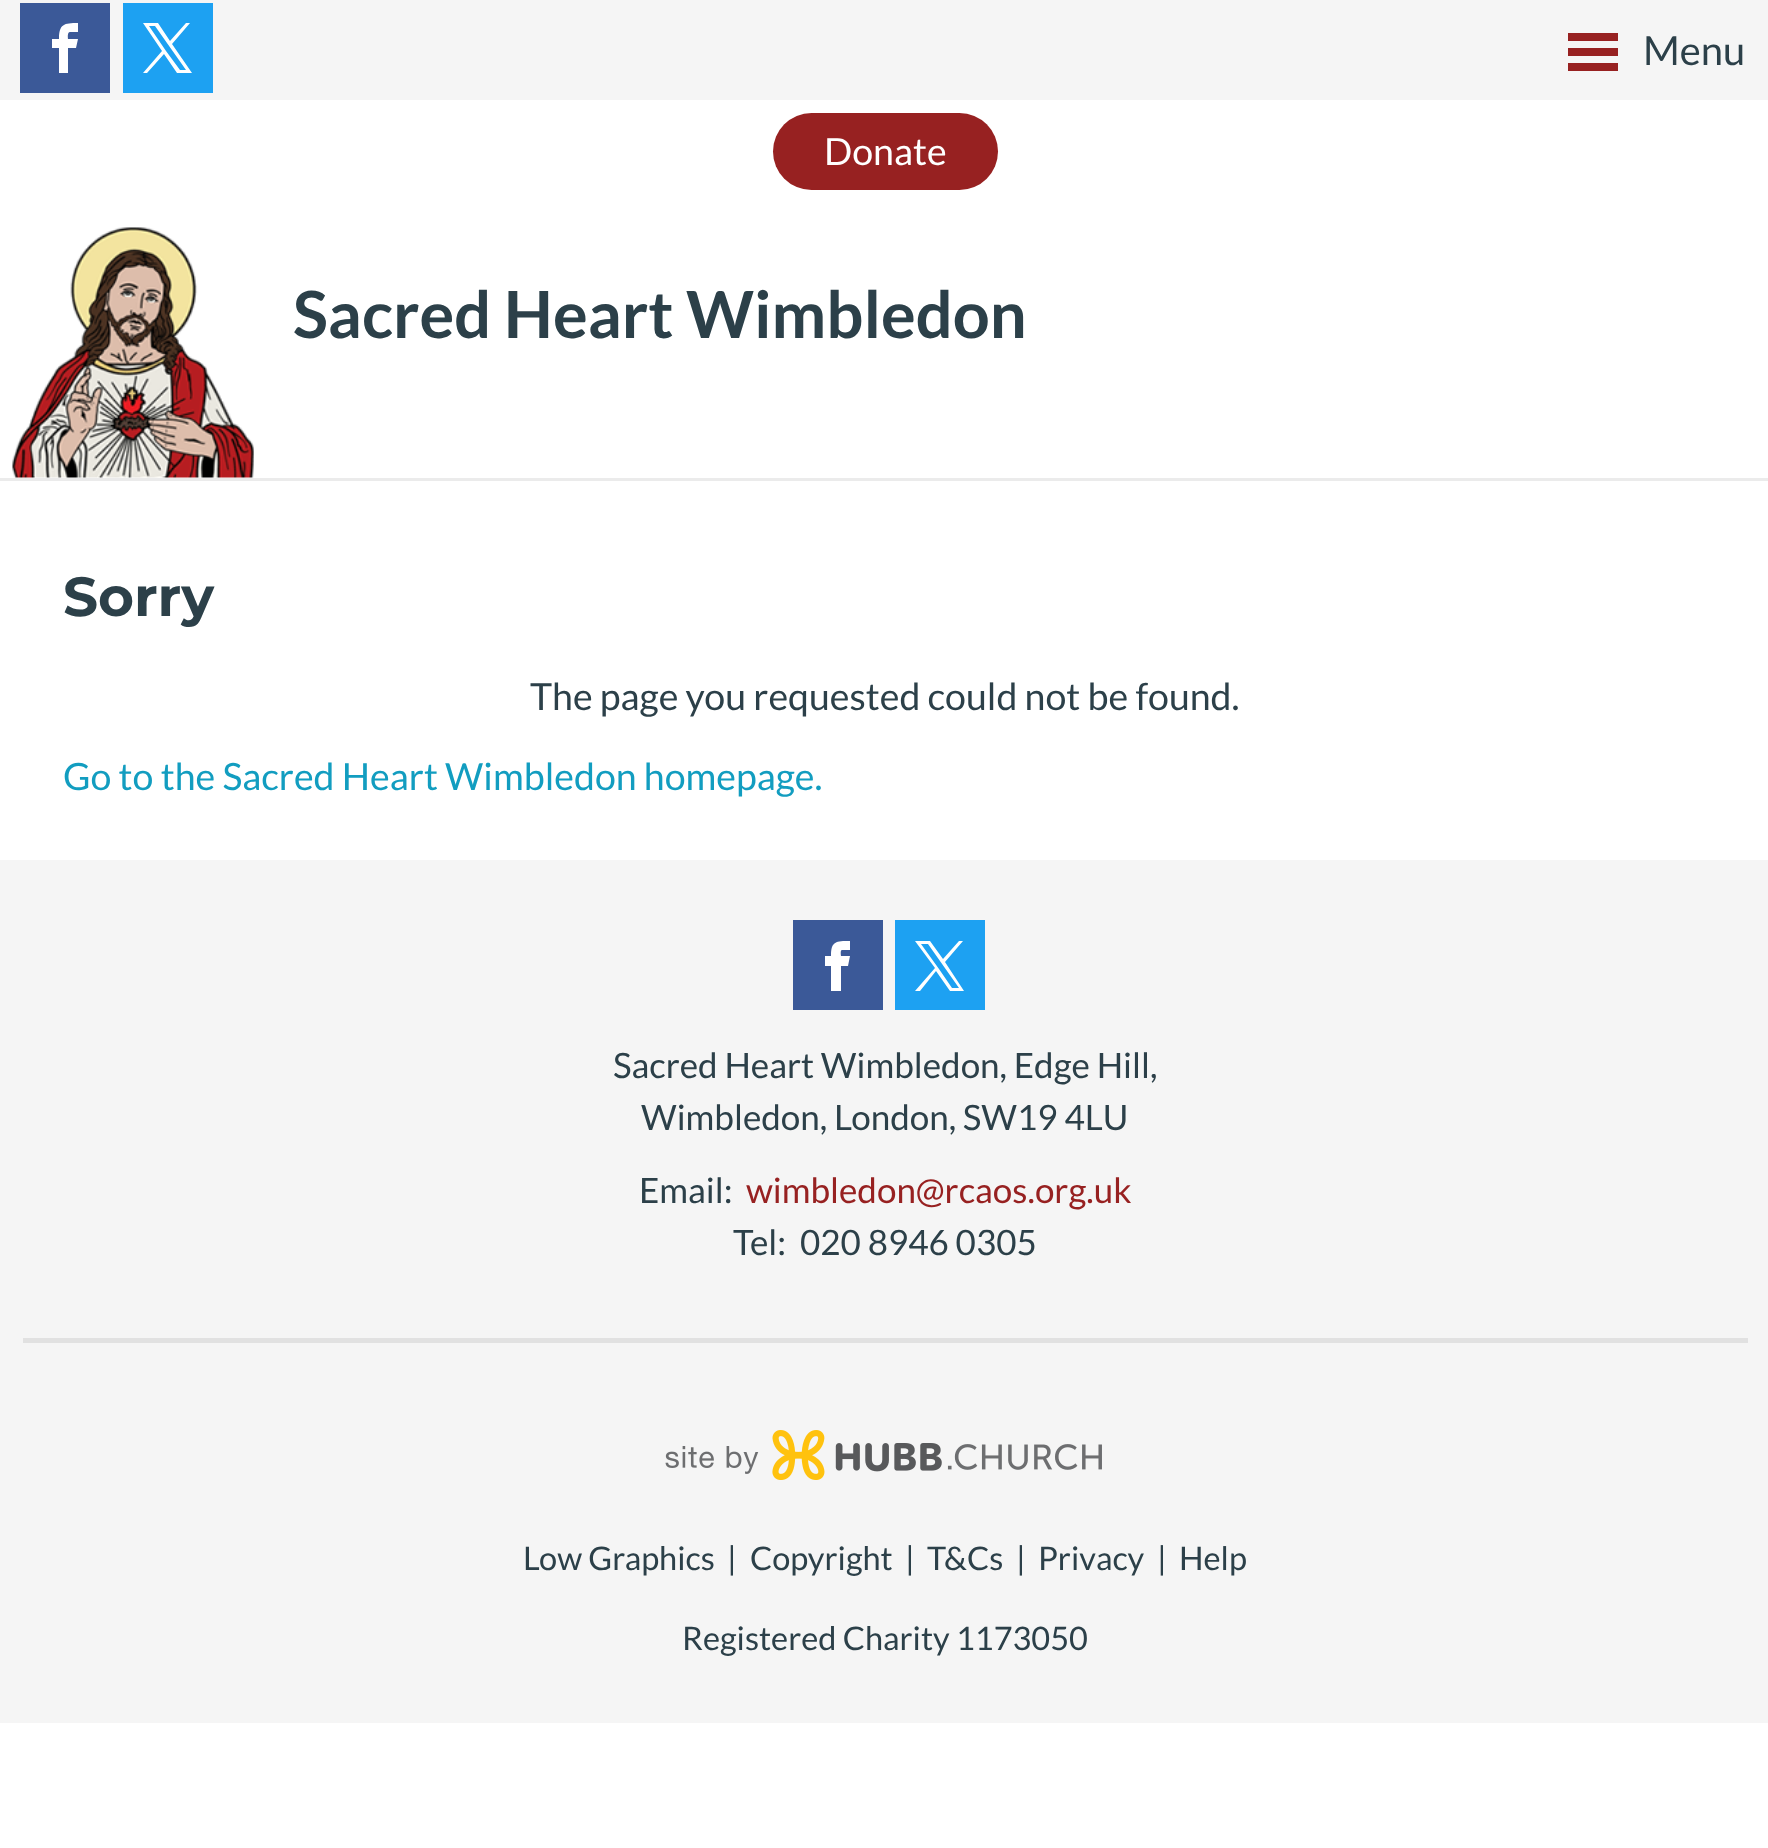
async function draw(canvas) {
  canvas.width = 1768
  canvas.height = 1848
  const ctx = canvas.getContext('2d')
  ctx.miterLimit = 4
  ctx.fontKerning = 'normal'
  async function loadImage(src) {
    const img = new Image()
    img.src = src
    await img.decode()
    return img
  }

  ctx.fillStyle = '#fff'
  ctx.fillRect(0, 0, 1768, 1848)
  ctx.fillStyle = '#f5f5f5'
  ctx.fillRect(0, 0, 1768, 100)
  ctx.fillStyle = '#3b5998'
  ctx.beginPath()
  ctx.rect(30, 13, 70, 70)
  ctx.fill()
  ctx.strokeStyle = '#3b5998'
  ctx.lineWidth = 20
  ctx.stroke()
  ctx.fillStyle = '#fff'
  ctx.beginPath()
  ctx.moveTo(70, 32)
  ctx.lineTo(78, 32)
  ctx.lineTo(78, 23)
  ctx.bezierCurveTo(64, 23, 59, 24, 59, 39)
  ctx.lineTo(52, 39)
  ctx.lineTo(52, 48)
  ctx.lineTo(59, 48)
  ctx.lineTo(59, 73)
  ctx.lineTo(68, 73)
  ctx.lineTo(68, 48)
  ctx.lineTo(76, 48)
  ctx.lineTo(78, 39)
  ctx.lineTo(68, 39)
  ctx.bezierCurveTo(68, 38, 67, 32, 70, 32)
  ctx.closePath()
  ctx.fill()
  ctx.fillStyle = '#1da1f2'
  ctx.beginPath()
  ctx.rect(133, 13, 70, 70)
  ctx.fill()
  ctx.strokeStyle = '#1da1f2'
  ctx.stroke()
  ctx.fillStyle = '#fff'
  ctx.beginPath()
  ctx.moveTo(172, 44)
  ctx.lineTo(190, 23)
  ctx.lineTo(186, 23)
  ctx.lineTo(170, 41)
  ctx.lineTo(158, 23)
  ctx.lineTo(143, 23)
  ctx.lineTo(162, 51)
  ctx.lineTo(143, 73)
  ctx.lineTo(147, 73)
  ctx.lineTo(164, 54)
  ctx.lineTo(177, 73)
  ctx.lineTo(192, 73)
  ctx.closePath()
  ctx.moveTo(166, 51)
  ctx.lineTo(149, 26)
  ctx.lineTo(155, 26)
  ctx.lineTo(186, 70)
  ctx.lineTo(180, 70)
  ctx.closePath()
  ctx.fill()
  ctx.fillStyle = '#972121'
  ctx.fillRect(1568, 33, 50, 8)
  ctx.fillRect(1568, 48, 50, 8)
  ctx.fillRect(1568, 63, 50, 8)
  ctx.font = '40px Lato'
  ctx.fillStyle = '#2c4049'
  ctx.fillText('Menu', 1643, 65)
  ctx.fillStyle = '#972121'
  ctx.beginPath()
  ctx.roundRect(773, 113, 225, 77, 38.5)
  ctx.fill()
  ctx.font = '37.5px Lato'
  ctx.fillStyle = '#fff'
  ctx.fillText('Donate', 824, 165)
  ctx.drawImage(await loadImage('image0.png'), 12, 227, 242, 251)
  ctx.font = 'bold 65px Lato'
  ctx.fillStyle = '#2c4049'
  ctx.fillText('Sacred Heart Wimbledon', 293, 338)
  ctx.fillStyle = '#ebebeb'
  ctx.fillRect(0, 478, 1768, 3)
  ctx.font = 'bold 55px Montserrat'
  ctx.fillStyle = '#2c4049'
  ctx.fillText('Sorry', 63, 616)
  ctx.font = '37.5px Lato'
  ctx.fillText('The page you requested could not be found.', 530, 710)
  ctx.fillStyle = '#129dc0'
  ctx.fillText('Go to the Sacred Heart Wimbledon homepage.', 63, 790)
  ctx.fillStyle = '#f5f5f5'
  ctx.fillRect(0, 860, 1768, 863)
  ctx.fillStyle = '#3b5998'
  ctx.beginPath()
  ctx.rect(803, 930, 70, 70)
  ctx.fill()
  ctx.strokeStyle = '#3b5998'
  ctx.stroke()
  ctx.fillStyle = '#fff'
  ctx.beginPath()
  ctx.moveTo(842, 950)
  ctx.lineTo(850, 950)
  ctx.lineTo(850, 941)
  ctx.bezierCurveTo(836, 941, 831, 941, 831, 956)
  ctx.lineTo(825, 956)
  ctx.lineTo(825, 966)
  ctx.lineTo(831, 966)
  ctx.lineTo(831, 991)
  ctx.lineTo(841, 991)
  ctx.lineTo(841, 966)
  ctx.lineTo(848, 966)
  ctx.lineTo(850, 956)
  ctx.lineTo(841, 956)
  ctx.bezierCurveTo(841, 955, 840, 950, 842, 950)
  ctx.closePath()
  ctx.fill()
  ctx.fillStyle = '#1da1f2'
  ctx.beginPath()
  ctx.rect(905, 930, 70, 70)
  ctx.fill()
  ctx.strokeStyle = '#1da1f2'
  ctx.stroke()
  ctx.fillStyle = '#fff'
  ctx.beginPath()
  ctx.moveTo(945, 962)
  ctx.lineTo(963, 941)
  ctx.lineTo(959, 941)
  ctx.lineTo(943, 959)
  ctx.lineTo(930, 941)
  ctx.lineTo(915, 941)
  ctx.lineTo(935, 968)
  ctx.lineTo(915, 991)
  ctx.lineTo(920, 991)
  ctx.lineTo(936, 971)
  ctx.lineTo(950, 991)
  ctx.lineTo(964, 991)
  ctx.closePath()
  ctx.moveTo(939, 969)
  ctx.lineTo(921, 944)
  ctx.lineTo(928, 944)
  ctx.lineTo(959, 988)
  ctx.lineTo(952, 988)
  ctx.closePath()
  ctx.fill()
  ctx.font = '35px Lato'
  ctx.fillStyle = '#2c4049'
  ctx.fillText('Sacred Heart Wimbledon, Edge Hill,', 613, 1078)
  ctx.fillText('Wimbledon, London, SW19 4LU', 641, 1130)
  ctx.fillText('Email:', 639, 1203)
  ctx.fillStyle = '#972121'
  ctx.fillText('wimbledon@rcaos.org.uk', 746, 1203)
  ctx.fillStyle = '#2c4049'
  ctx.fillText('Tel:', 733, 1255)
  ctx.fillText('020 8946 0305', 800, 1255)
  ctx.fillStyle = '#e1e1e1'
  ctx.fillRect(23, 1338, 1725, 5)
  ctx.drawImage(await loadImage('image1.png'), 665, 1430, 437, 50)
  ctx.font = '32.5px Lato'
  ctx.fillStyle = '#2c4049'
  ctx.fillText('Low Graphics', 523, 1570)
  ctx.fillText('|', 727, 1570)
  ctx.fillText('Copyright', 750, 1570)
  ctx.fillText('|', 905, 1570)
  ctx.fillText('T&Cs', 927, 1570)
  ctx.fillText('|', 1016, 1570)
  ctx.fillText('Privacy', 1038, 1570)
  ctx.fillText('|', 1157, 1570)
  ctx.fillText('Help', 1179, 1570)
  ctx.fillText('Registered Charity 1173050', 682, 1650)
}

draw(document.querySelector('canvas'))
